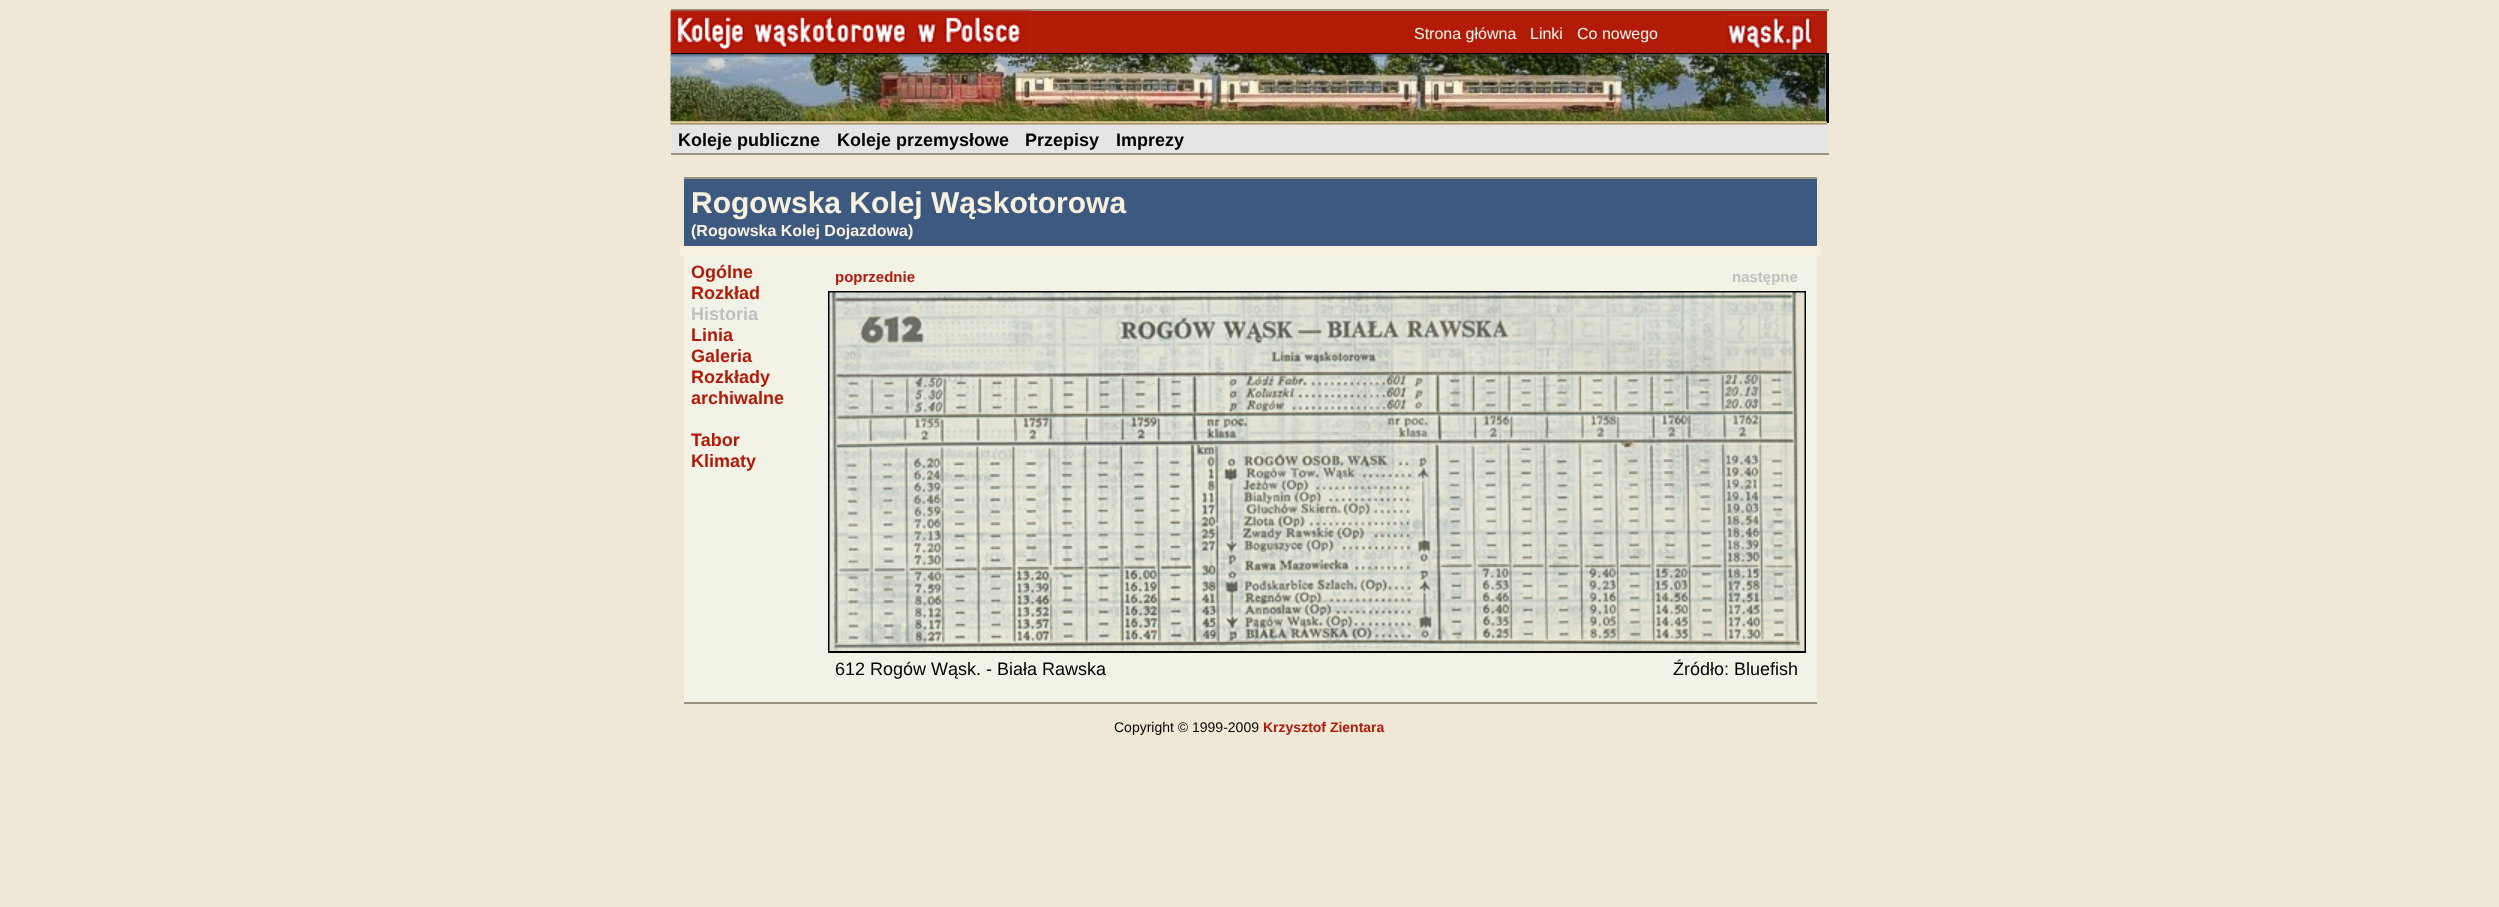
async function draw(canvas) {
  canvas.width = 2499
  canvas.height = 907
  const ctx = canvas.getContext('2d')
  ctx.miterLimit = 4
  ctx.fontKerning = 'normal'
  async function loadImage(src) {
    const img = new Image()
    img.src = src
    await img.decode()
    return img
  }

  ctx.fillStyle = '#efe8d6'
  ctx.fillRect(0, 0, 2499, 907)
  ctx.fillStyle = '#979282'
  ctx.fillRect(671, 9, 1158, 2)
  ctx.fillRect(671, 153, 1158, 2)
  ctx.fillStyle = '#b31b09'
  ctx.fillRect(671, 11, 1156, 42)
  ctx.drawImage(await loadImage('image0.png'), 670, 10, 361, 43)
  ctx.fillStyle = '#000'
  ctx.fillRect(1713, 53, 116, 2)
  ctx.fillRect(671, 53, 1044, 1)
  ctx.font = '16px Liberation Sans'
  ctx.fillStyle = '#f9f7ef'
  ctx.fillText('Strona główna', 1414, 39)
  ctx.fillText('Linki', 1530, 39)
  ctx.fillText('Co nowego', 1577, 39)
  ctx.drawImage(await loadImage('image1.png'), 1722, 15, 97, 37)
  ctx.fillStyle = '#bfbfbf'
  ctx.fillRect(671, 55, 1155, 67)
  ctx.fillStyle = '#000'
  ctx.fillRect(1826, 53, 3, 70)
  ctx.drawImage(await loadImage('image2.png'), 670, 54, 1156, 68)
  ctx.fillStyle = '#e5e5e5'
  ctx.fillRect(671, 124, 1156, 29)
  ctx.drawImage(await loadImage('image3.png'), 670, 121, 1157, 4)
  ctx.font = 'bold 18px Liberation Sans'
  ctx.fillStyle = '#000'
  ctx.fillText('Koleje publiczne', 678, 146)
  ctx.fillText('Koleje przemysłowe', 837, 146)
  ctx.fillText('Przepisy', 1025, 146)
  ctx.fillText('Imprezy', 1116, 146)
  ctx.fillStyle = '#979282'
  ctx.fillRect(684, 177, 1133, 2)
  ctx.fillRect(684, 702, 1133, 2)
  ctx.fillStyle = '#3e597f'
  ctx.fillRect(684, 179, 1133, 67)
  ctx.fillStyle = '#f7f2e0'
  ctx.fillRect(680, 246, 1141, 9)
  ctx.font = 'bold 30px Liberation Sans'
  ctx.fillText('Rogowska Kolej Wąskotorowa', 691, 213)
  ctx.font = 'bold 16px Liberation Sans'
  ctx.fillText('(Rogowska Kolej Dojazdowa)', 691, 236)
  ctx.fillStyle = '#f3f2e6'
  ctx.fillRect(684, 255, 1133, 447)
  ctx.font = 'bold 18px Liberation Sans'
  ctx.fillStyle = '#b31b09'
  ctx.fillText('Ogólne', 691, 278)
  ctx.fillText('Rozkład', 691, 299)
  ctx.fillStyle = '#c0c0c0'
  ctx.fillText('Historia', 691, 320)
  ctx.fillStyle = '#b31b09'
  ctx.fillText('Linia', 691, 341)
  ctx.fillText('Galeria', 691, 362)
  ctx.fillText('Rozkłady', 691, 383)
  ctx.fillText('archiwalne', 691, 404)
  ctx.fillText('Tabor', 691, 446)
  ctx.fillText('Klimaty', 691, 467)
  ctx.font = 'bold 15px Liberation Sans'
  ctx.fillText('poprzednie', 835, 282)
  ctx.fillStyle = '#c0c0c0'
  ctx.fillText('następne', 1732, 282)
  ctx.strokeStyle = '#000'
  ctx.lineWidth = 2
  ctx.strokeRect(829, 292, 976, 360)
  ctx.drawImage(await loadImage('image4.png'), 829, 292, 976, 359)
  ctx.font = '18px Liberation Sans'
  ctx.fillStyle = '#000'
  ctx.fillText('612 Rogów Wąsk. - Biała Rawska', 835, 675)
  ctx.fillText('Źródło: Bluefish', 1673, 675)
  ctx.font = '14px Liberation Sans'
  ctx.fillText('Copyright © 1999-2009', 1114, 732)
  ctx.font = 'bold 14px Liberation Sans'
  ctx.fillStyle = '#b31b09'
  ctx.fillText('Krzysztof Zientara', 1263, 732)
}

draw(document.querySelector('canvas'))
